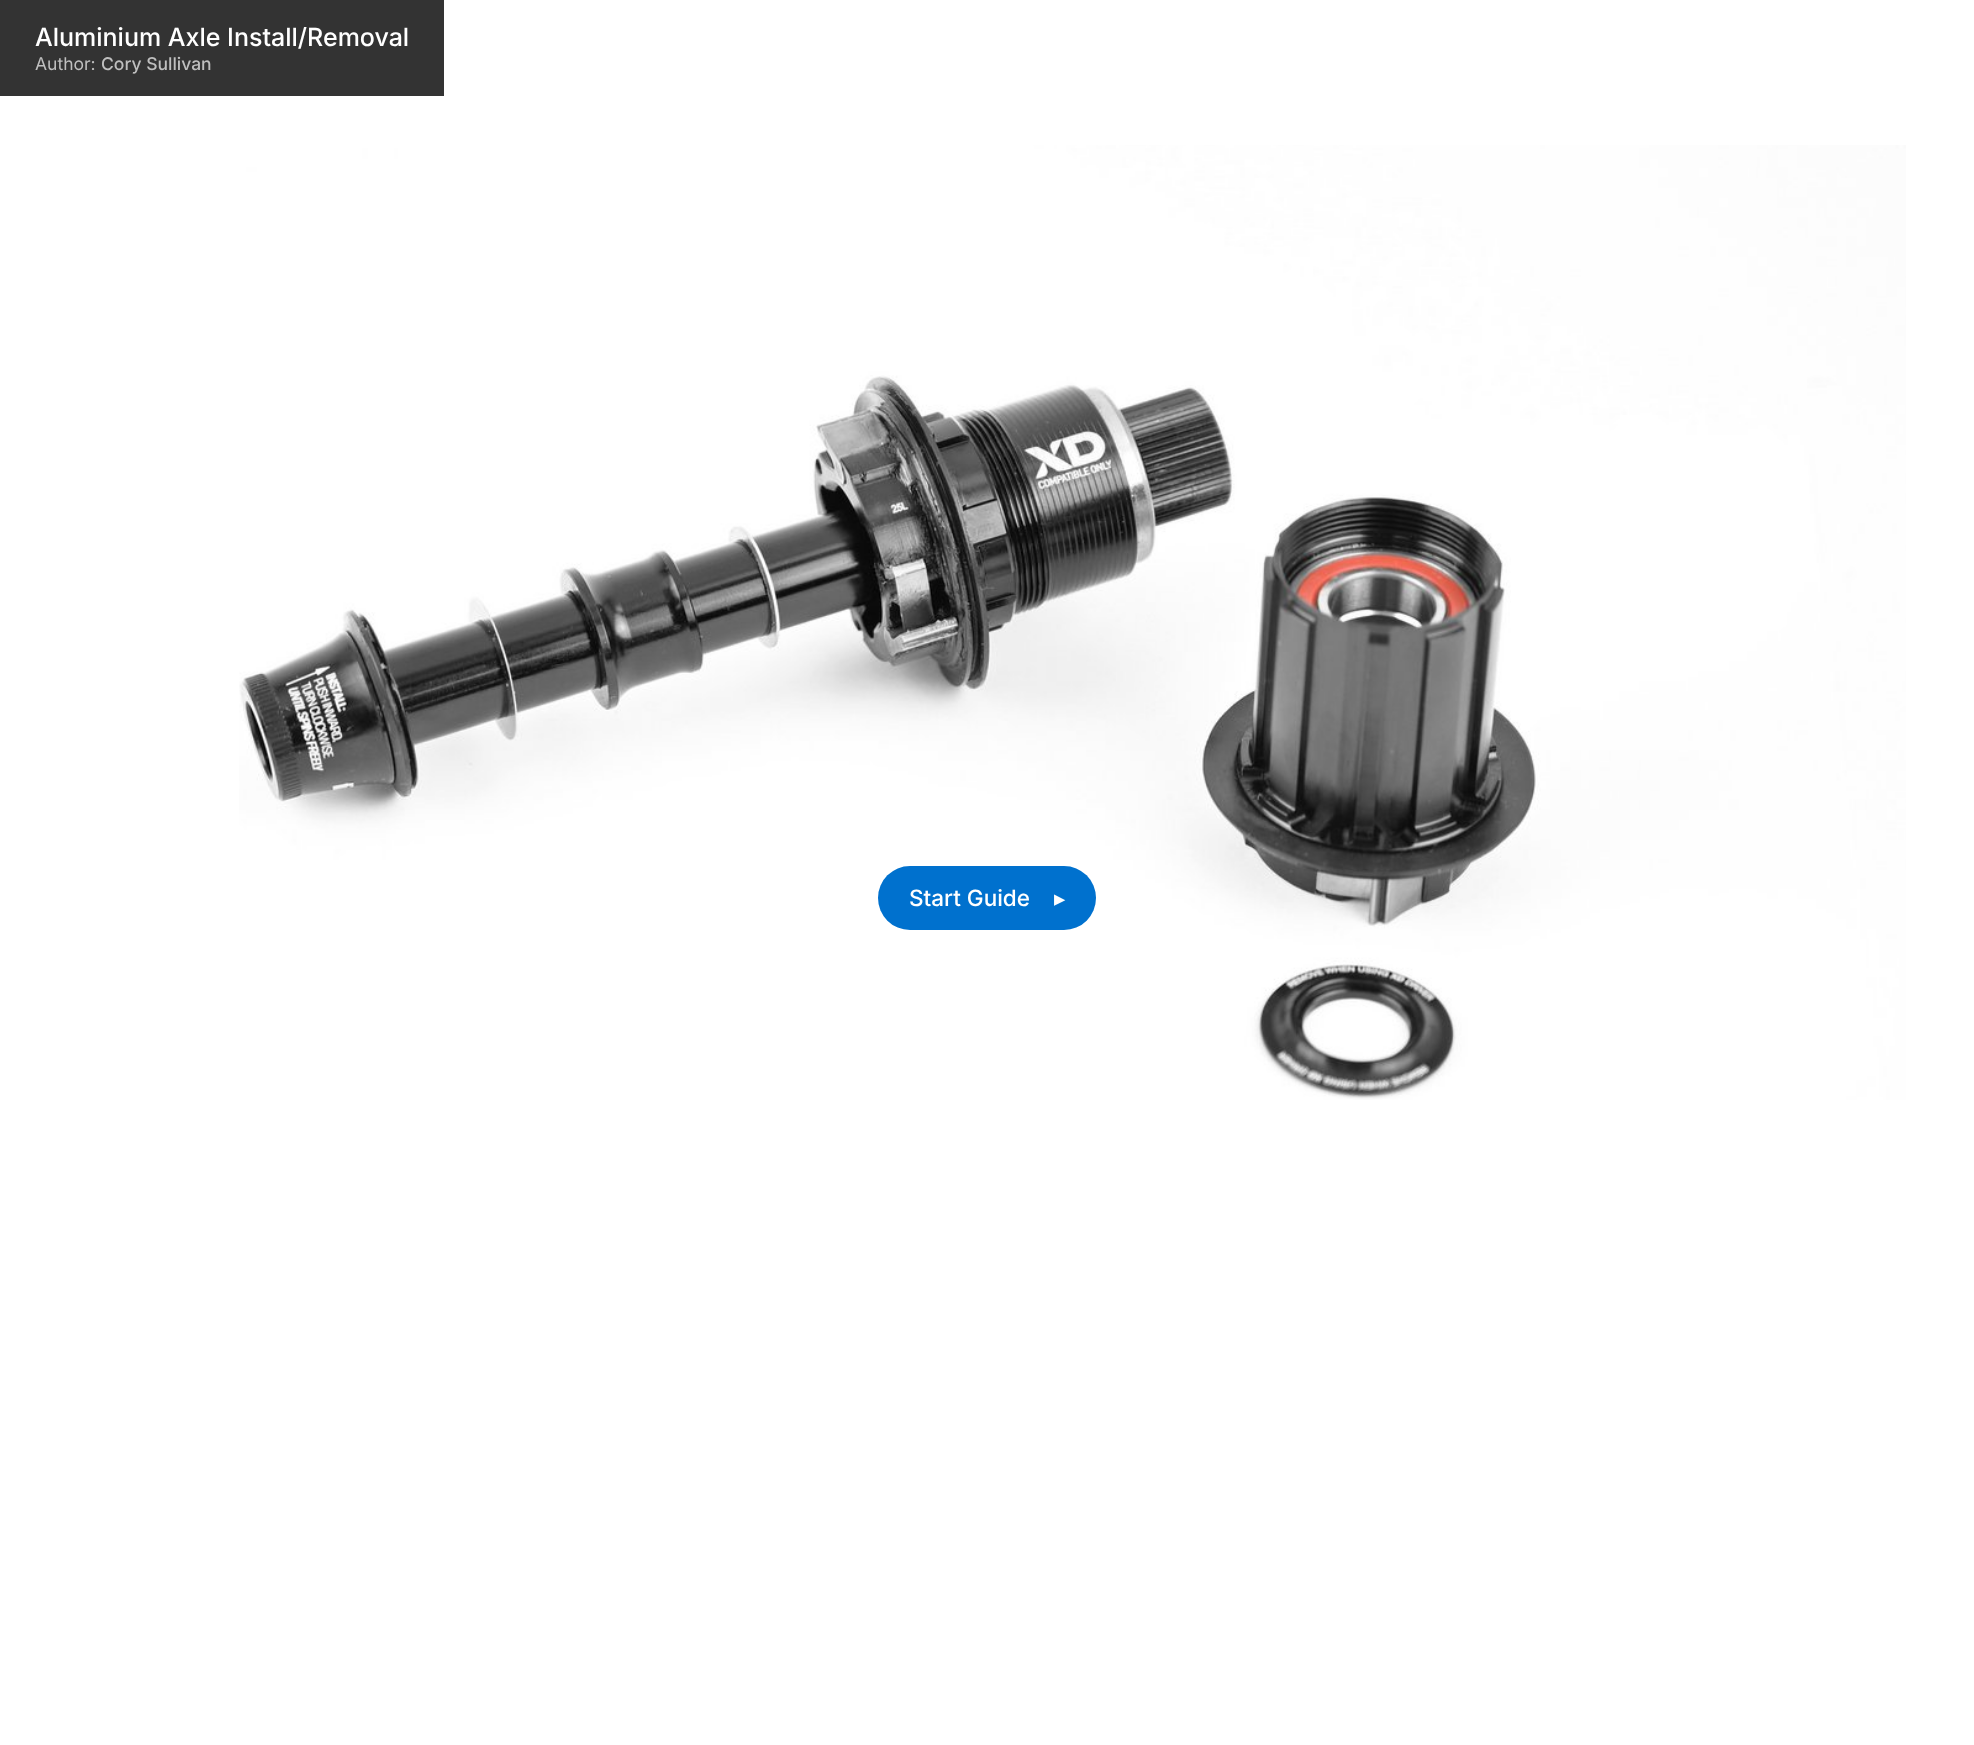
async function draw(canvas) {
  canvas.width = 1974
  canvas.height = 1745
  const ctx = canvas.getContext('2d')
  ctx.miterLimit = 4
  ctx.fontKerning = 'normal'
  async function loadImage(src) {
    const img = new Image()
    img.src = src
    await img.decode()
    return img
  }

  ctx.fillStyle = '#fff'
  ctx.fillRect(0, 0, 1974, 1745)
  ctx.fillStyle = '#333'
  ctx.fillRect(0, 0, 444, 96)
  ctx.font = '500 25px Inter'
  ctx.fillStyle = '#fff'
  ctx.fillText('Aluminium Axle Install/Removal', 35, 46)
  ctx.font = '17.5px Inter'
  ctx.fillStyle = '#bfbfbf'
  ctx.fillText('Author:', 35, 70)
  ctx.font = '500 17.5px Inter'
  ctx.fillText('Cory Sullivan', 101, 70)
  ctx.drawImage(await loadImage('image0.png'), 239, 145, 1667, 955)
  ctx.fillStyle = '#0071ce'
  ctx.beginPath()
  ctx.roundRect(878, 866, 218, 64, 32)
  ctx.fill()
  ctx.font = '500 22.5px Inter'
  ctx.fillStyle = '#fff'
  ctx.fillText('Start Guide', 909, 906)
  ctx.font = '22.5px DejaVu Sans'
  ctx.fillText('▸', 1054, 906)
}

draw(document.querySelector('canvas'))
